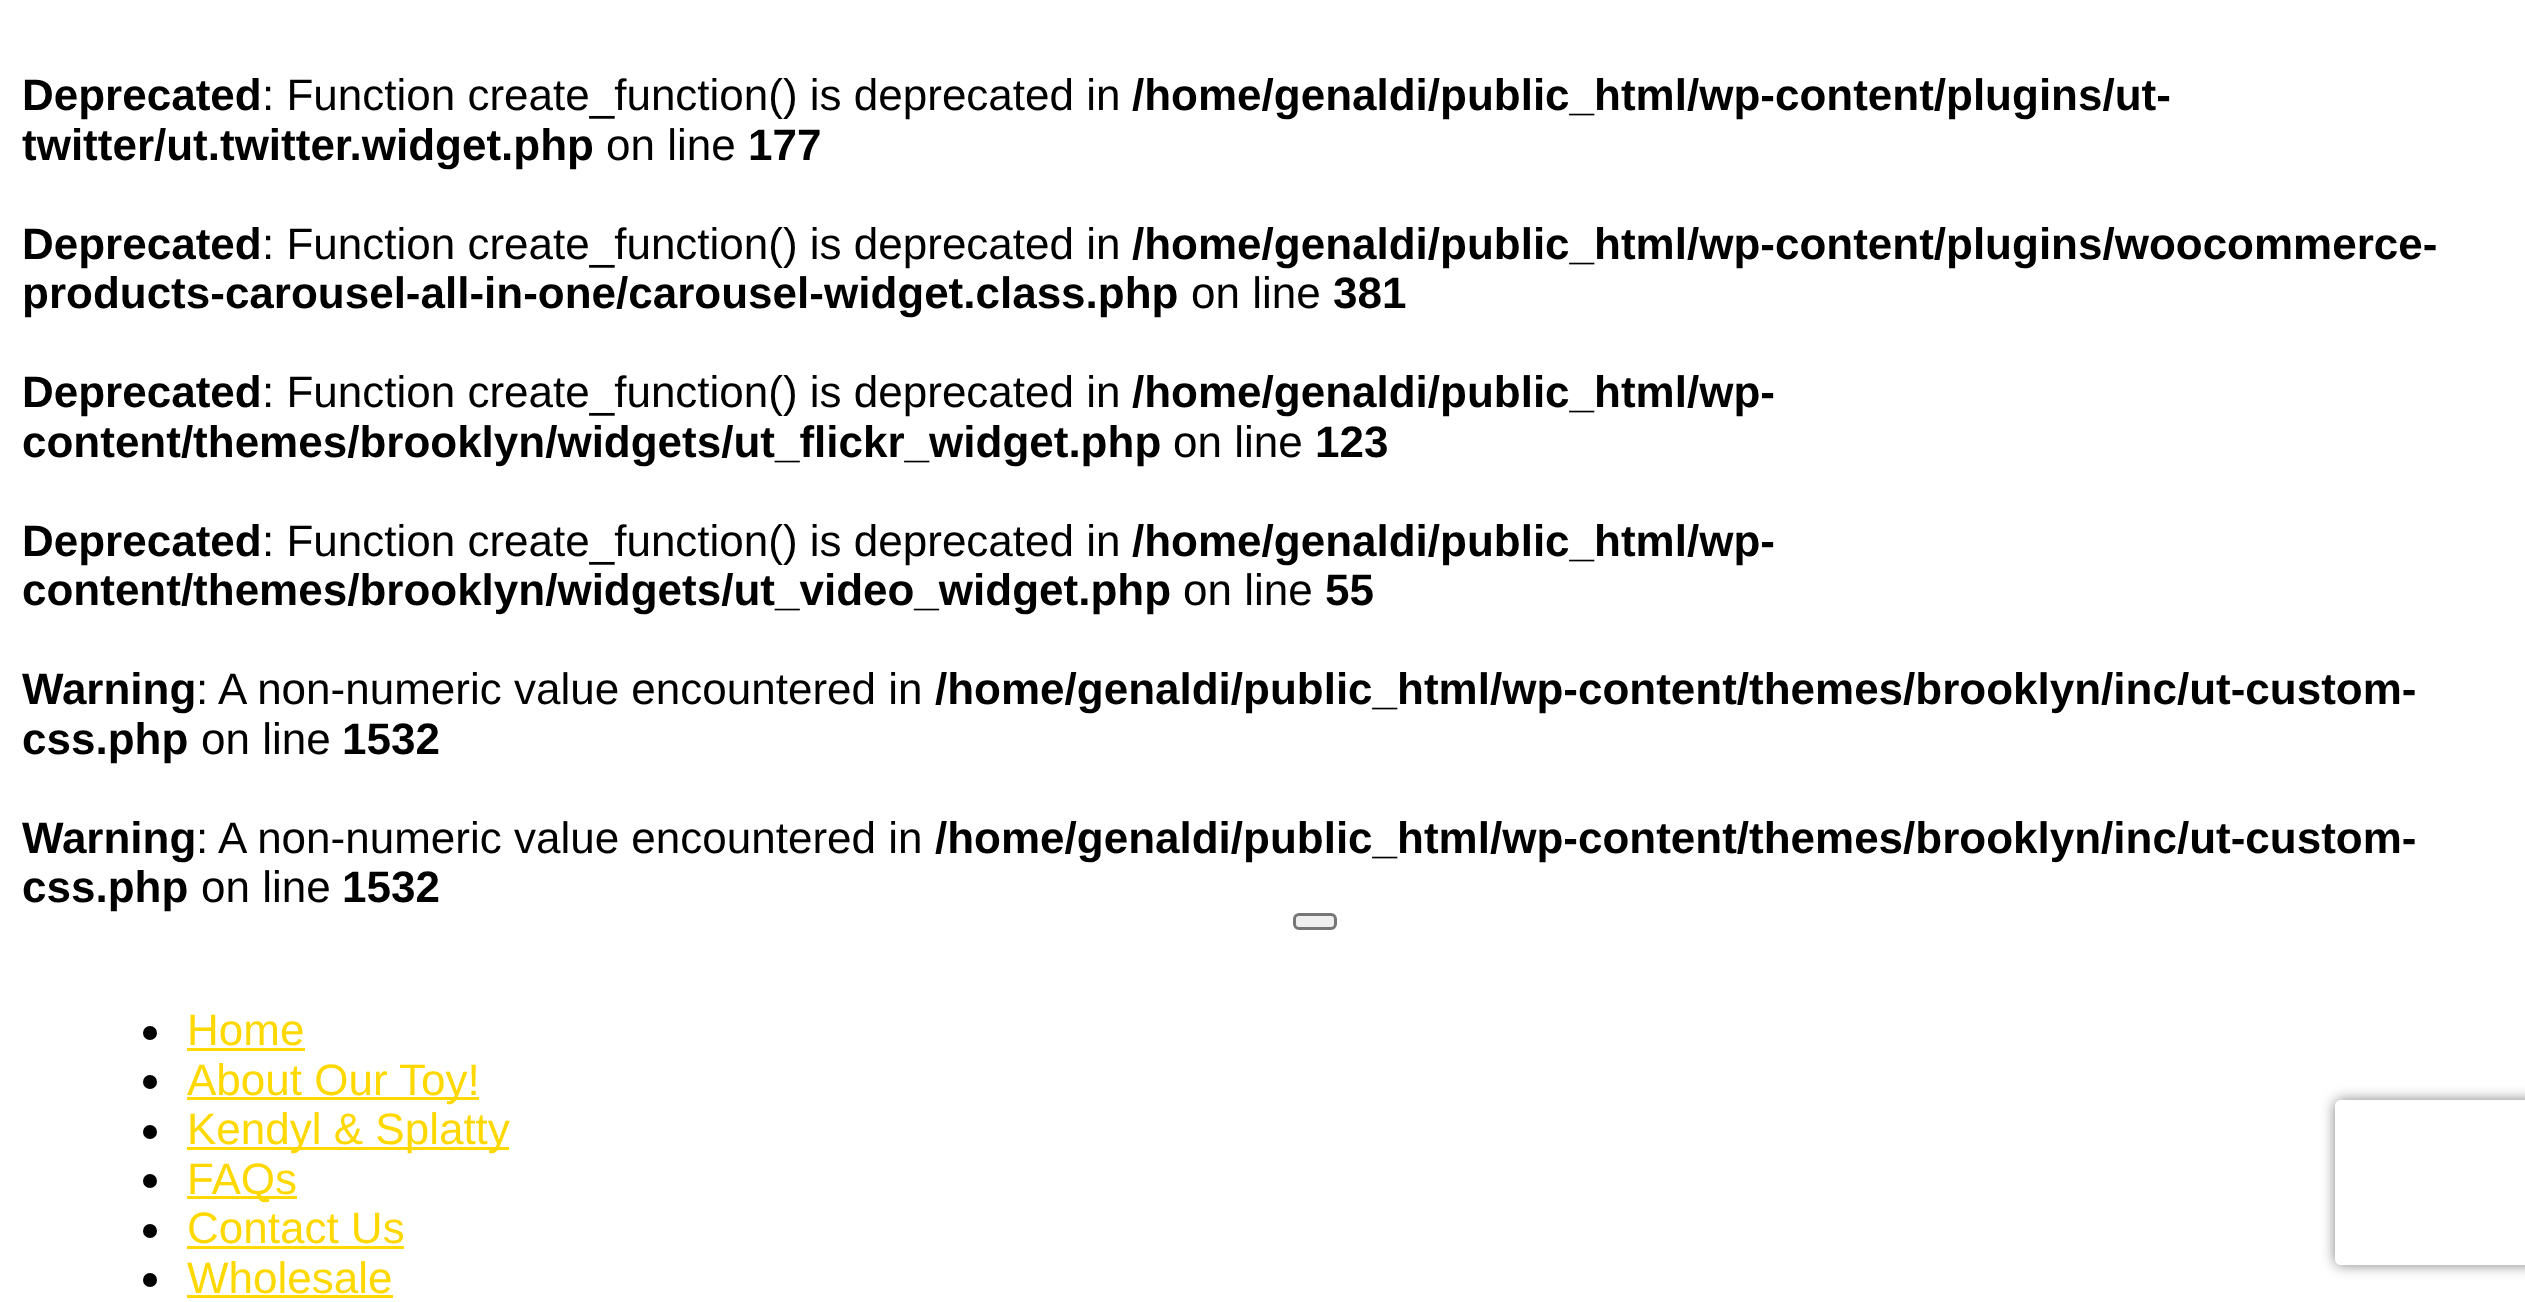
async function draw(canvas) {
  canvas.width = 2525
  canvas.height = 1302
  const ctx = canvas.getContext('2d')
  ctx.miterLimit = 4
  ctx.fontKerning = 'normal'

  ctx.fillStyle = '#fff'
  ctx.fillRect(0, 0, 2525, 1302)
  ctx.font = 'bold 44px Liberation Sans'
  ctx.fillStyle = '#000'
  ctx.fillText('Deprecated', 22, 110)
  ctx.font = '44px Liberation Sans'
  ctx.fillText(': Function create_function() is deprecated in', 262, 110)
  ctx.font = 'bold 44px Liberation Sans'
  ctx.fillText('/home/genaldi/public_html/wp-content/plugins/ut-', 1132, 110)
  ctx.fillText('twitter/ut.twitter.widget.php', 22, 160)
  ctx.font = '44px Liberation Sans'
  ctx.fillText('on line', 606, 160)
  ctx.font = 'bold 44px Liberation Sans'
  ctx.fillText('177', 748, 160)
  ctx.fillText('Deprecated', 22, 259)
  ctx.font = '44px Liberation Sans'
  ctx.fillText(': Function create_function() is deprecated in', 262, 259)
  ctx.font = 'bold 44px Liberation Sans'
  ctx.fillText('/home/genaldi/public_html/wp-content/plugins/woocommerce-', 1132, 259)
  ctx.fillText('products-carousel-all-in-one/carousel-widget.class.php', 22, 308)
  ctx.font = '44px Liberation Sans'
  ctx.fillText('on line', 1191, 308)
  ctx.font = 'bold 44px Liberation Sans'
  ctx.fillText('381', 1333, 308)
  ctx.fillText('Deprecated', 22, 407)
  ctx.font = '44px Liberation Sans'
  ctx.fillText(': Function create_function() is deprecated in', 262, 407)
  ctx.font = 'bold 44px Liberation Sans'
  ctx.fillText('/home/genaldi/public_html/wp-', 1132, 407)
  ctx.fillText('content/themes/brooklyn/widgets/ut_flickr_widget.php', 22, 457)
  ctx.font = '44px Liberation Sans'
  ctx.fillText('on line', 1173, 457)
  ctx.font = 'bold 44px Liberation Sans'
  ctx.fillText('123', 1315, 457)
  ctx.fillText('Deprecated', 22, 556)
  ctx.font = '44px Liberation Sans'
  ctx.fillText(': Function create_function() is deprecated in', 262, 556)
  ctx.font = 'bold 44px Liberation Sans'
  ctx.fillText('/home/genaldi/public_html/wp-', 1132, 556)
  ctx.fillText('content/themes/brooklyn/widgets/ut_video_widget.php', 22, 605)
  ctx.font = '44px Liberation Sans'
  ctx.fillText('on line', 1183, 605)
  ctx.font = 'bold 44px Liberation Sans'
  ctx.fillText('55', 1325, 605)
  ctx.fillText('Warning', 22, 704)
  ctx.font = '44px Liberation Sans'
  ctx.fillText(':', 196, 704)
  ctx.fillText('A non-numeric value encountered in', 218, 704)
  ctx.font = 'bold 44px Liberation Sans'
  ctx.fillText('/home/genaldi/public_html/wp-content/themes/brooklyn/inc/ut-custom-', 935, 704)
  ctx.fillText('css.php', 22, 754)
  ctx.font = '44px Liberation Sans'
  ctx.fillText('on line', 201, 754)
  ctx.font = 'bold 44px Liberation Sans'
  ctx.fillText('1532', 342, 754)
  ctx.fillText('Warning', 22, 853)
  ctx.font = '44px Liberation Sans'
  ctx.fillText(':', 196, 853)
  ctx.fillText('A non-numeric value encountered in', 218, 853)
  ctx.font = 'bold 44px Liberation Sans'
  ctx.fillText('/home/genaldi/public_html/wp-content/themes/brooklyn/inc/ut-custom-', 935, 853)
  ctx.fillText('css.php', 22, 902)
  ctx.font = '44px Liberation Sans'
  ctx.fillText('on line', 201, 902)
  ctx.font = 'bold 44px Liberation Sans'
  ctx.fillText('1532', 342, 902)
  ctx.fillStyle = '#efefef'
  ctx.beginPath()
  ctx.roundRect(1294.5, 914.5, 41, 14, 4.5)
  ctx.fill()
  ctx.strokeStyle = '#767676'
  ctx.lineWidth = 3
  ctx.stroke()
  ctx.fillStyle = '#000'
  ctx.beginPath()
  ctx.arc(150, 1033, 7, 0, 2 * Math.PI)
  ctx.fill()
  ctx.font = '44px Liberation Sans'
  ctx.fillStyle = '#ffd800'
  ctx.fillText('Home', 187, 1045)
  ctx.fillRect(187, 1048, 118, 3)
  ctx.fillStyle = '#000'
  ctx.beginPath()
  ctx.arc(150, 1082, 7, 0, 2 * Math.PI)
  ctx.fill()
  ctx.fillStyle = '#ffd800'
  ctx.fillRect(187, 1097, 292, 3)
  ctx.fillText('About Our Toy!', 187, 1095)
  ctx.fillStyle = '#000'
  ctx.beginPath()
  ctx.arc(150, 1132, 7, 0, 2 * Math.PI)
  ctx.fill()
  ctx.fillStyle = '#ffd800'
  ctx.fillRect(187, 1147, 322, 3)
  ctx.fillText('Kendyl & Splatty', 187, 1144)
  ctx.fillStyle = '#000'
  ctx.beginPath()
  ctx.arc(150, 1181, 7, 0, 2 * Math.PI)
  ctx.fill()
  ctx.fillStyle = '#ffd800'
  ctx.fillRect(187, 1196, 110, 3)
  ctx.fillText('FAQs', 187, 1194)
  ctx.fillStyle = '#000'
  ctx.beginPath()
  ctx.arc(150, 1231, 7, 0, 2 * Math.PI)
  ctx.fill()
  ctx.fillStyle = '#ffd800'
  ctx.fillText('Contact Us', 187, 1243)
  ctx.fillRect(187, 1246, 217, 3)
  ctx.fillStyle = '#000'
  ctx.beginPath()
  ctx.arc(150, 1280, 7, 0, 2 * Math.PI)
  ctx.fill()
  ctx.fillStyle = '#ffd800'
  ctx.fillText('Wholesale', 187, 1293)
  ctx.fillRect(187, 1295, 206, 3)
  ctx.save()
  ctx.beginPath()
  ctx.moveTo(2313, 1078)
  ctx.lineTo(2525, 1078)
  ctx.lineTo(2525, 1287)
  ctx.lineTo(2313, 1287)
  ctx.closePath()
  ctx.moveTo(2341, 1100)
  ctx.lineTo(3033, 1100)
  ctx.bezierCurveTo(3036.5, 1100, 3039, 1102.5, 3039, 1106)
  ctx.lineTo(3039, 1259)
  ctx.bezierCurveTo(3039, 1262.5, 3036.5, 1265, 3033, 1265)
  ctx.lineTo(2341, 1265)
  ctx.bezierCurveTo(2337.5, 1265, 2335, 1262.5, 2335, 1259)
  ctx.lineTo(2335, 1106)
  ctx.bezierCurveTo(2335, 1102.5, 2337.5, 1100, 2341, 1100)
  ctx.closePath()
  ctx.clip('evenodd')
  ctx.fillStyle = '#808080'
  ctx.filter = 'blur(7px)'
  ctx.beginPath()
  ctx.roundRect(2335, 1100, 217, 165, 6)
  ctx.fill()
  ctx.filter = 'none'
  ctx.restore()
}

draw(document.querySelector('canvas'))
